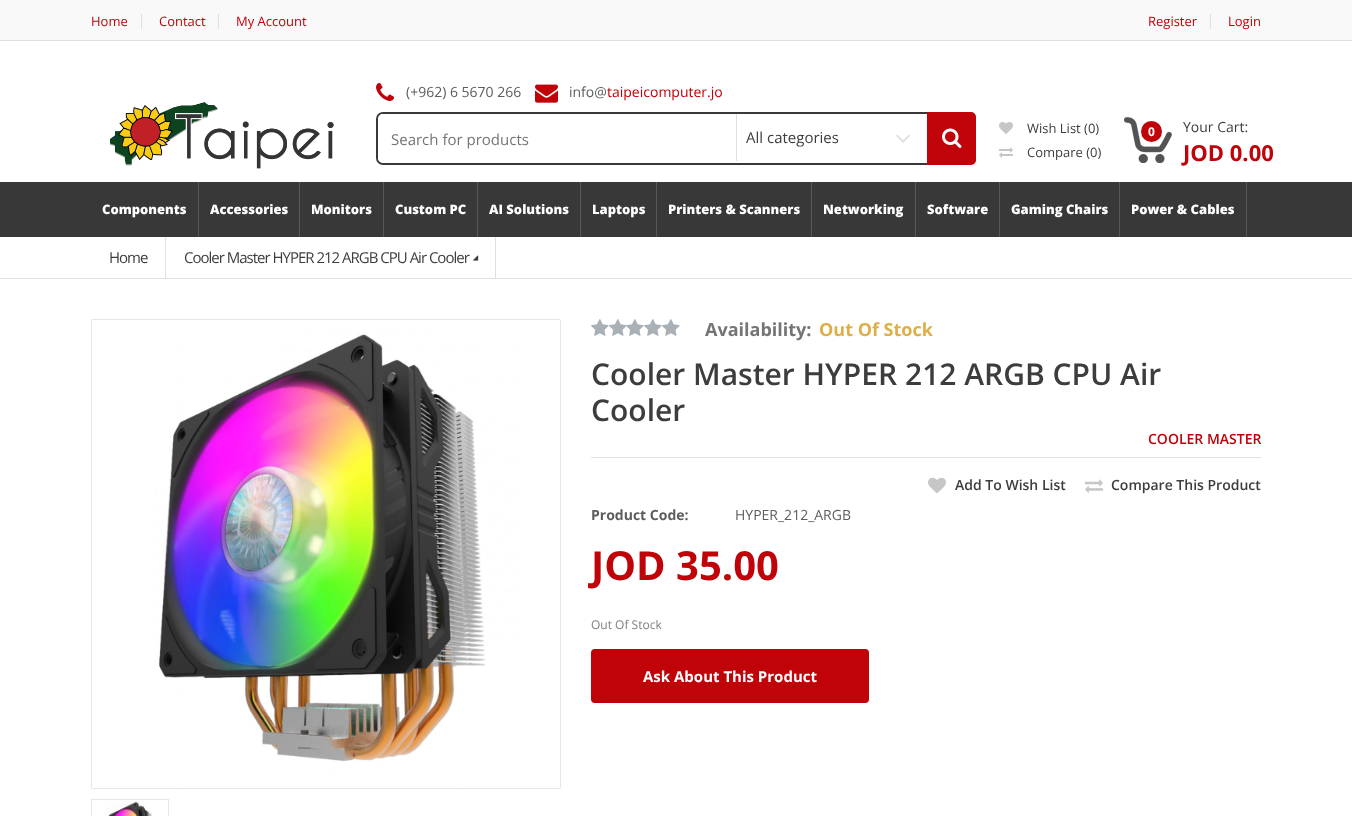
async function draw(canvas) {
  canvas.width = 1352
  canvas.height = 816
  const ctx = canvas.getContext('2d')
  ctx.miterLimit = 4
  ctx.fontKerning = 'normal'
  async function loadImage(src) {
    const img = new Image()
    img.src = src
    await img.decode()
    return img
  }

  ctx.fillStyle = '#fff'
  ctx.fillRect(0, 0, 1352, 816)
  ctx.fillStyle = '#f9f9f9'
  ctx.fillRect(0, 0, 1352, 40)
  ctx.fillStyle = '#e0e0e0'
  ctx.fillRect(0, 40, 1352, 1)
  ctx.fillRect(141, 14, 1, 15)
  ctx.font = '13px Open Sans'
  ctx.fillStyle = '#c00209'
  ctx.fillText('Home', 91, 26)
  ctx.fillStyle = '#e0e0e0'
  ctx.fillRect(218, 14, 1, 15)
  ctx.fillStyle = '#c00209'
  ctx.fillText('Contact', 159, 26)
  ctx.fillText('My Account', 236, 26)
  ctx.fillStyle = '#e0e0e0'
  ctx.fillRect(1210, 14, 1, 15)
  ctx.fillStyle = '#c00209'
  ctx.fillText('Register', 1148, 26)
  ctx.fillText('Login', 1228, 26)
  ctx.drawImage(await loadImage('image0.png'), 110, 102, 224, 67)
  ctx.drawImage(await loadImage('image1.png'), 376, 82, 19, 19)
  ctx.font = '14px Open Sans'
  ctx.fillStyle = '#5d5d5d'
  ctx.fillText('(+962) 6 5670 266', 406, 97)
  ctx.drawImage(await loadImage('image2.png'), 535, 84, 23, 19)
  ctx.fillText('info@', 569, 97)
  ctx.fillStyle = '#c00209'
  ctx.fillText('taipeicomputer.jo', 607, 97)
  ctx.beginPath()
  ctx.roundRect(377, 113, 598, 51, 6)
  ctx.strokeStyle = '#383838'
  ctx.lineWidth = 2
  ctx.stroke()
  ctx.fillStyle = '#fff'
  ctx.beginPath()
  ctx.roundRect(378, 114, 358, 49, [5, 0, 0, 5])
  ctx.fill()
  ctx.font = '15px Open Sans'
  ctx.fillStyle = '#757575'
  ctx.fillText('Search for products', 391, 145)
  ctx.fillStyle = '#e0e0e0'
  ctx.fillRect(736, 114, 1, 47)
  ctx.fillStyle = '#3d3d3d'
  ctx.fillText('All categories', 746, 143)
  ctx.drawImage(await loadImage('image3.png'), 896, 134, 14, 9)
  ctx.fillStyle = '#c00209'
  ctx.beginPath()
  ctx.roundRect(927, 112, 49, 53, [0, 5, 5, 0])
  ctx.fill()
  ctx.drawImage(await loadImage('image4.png'), 942, 128, 20, 20)
  ctx.drawImage(await loadImage('image5.png'), 999, 122, 14, 12)
  ctx.font = '13px Open Sans'
  ctx.fillStyle = '#3d3d3d'
  ctx.fillText('Wish List (0)', 1027, 133)
  ctx.drawImage(await loadImage('image6.png'), 999, 147, 14, 11)
  ctx.fillText('Compare (0)', 1027, 157)
  ctx.drawImage(await loadImage('image7.png'), 1124, 117, 48, 46)
  ctx.fillStyle = '#c00209'
  ctx.beginPath()
  ctx.arc(1151.5, 131.5, 10.5, 0, 2 * Math.PI)
  ctx.fill()
  ctx.font = 'bold 12px Open Sans'
  ctx.fillStyle = '#fff'
  ctx.fillText('0', 1148, 136)
  ctx.font = '14px Open Sans'
  ctx.fillStyle = '#3d3d3d'
  ctx.fillText('Your Cart:', 1183, 132)
  ctx.font = 'bold 22px Open Sans'
  ctx.fillStyle = '#c00209'
  ctx.fillText('JOD 0.00', 1183, 161)
  ctx.fillStyle = '#383838'
  ctx.fillRect(0, 182, 1352, 55)
  ctx.fillStyle = '#585858'
  ctx.fillRect(198, 182, 1, 55)
  ctx.font = '800 13px Open Sans'
  ctx.fillStyle = '#fff'
  ctx.fillText('Components', 102, 214)
  ctx.fillStyle = '#585858'
  ctx.fillRect(299, 182, 1, 55)
  ctx.fillStyle = '#fff'
  ctx.fillText('Accessories', 210, 214)
  ctx.fillStyle = '#585858'
  ctx.fillRect(383, 182, 1, 55)
  ctx.fillStyle = '#fff'
  ctx.fillText('Monitors', 311, 214)
  ctx.fillStyle = '#585858'
  ctx.fillRect(477, 182, 1, 55)
  ctx.fillStyle = '#fff'
  ctx.fillText('Custom PC', 395, 214)
  ctx.fillStyle = '#585858'
  ctx.fillRect(580, 182, 1, 55)
  ctx.fillStyle = '#fff'
  ctx.fillText('AI Solutions', 489, 214)
  ctx.fillStyle = '#585858'
  ctx.fillRect(656, 182, 1, 55)
  ctx.fillStyle = '#fff'
  ctx.fillText('Laptops', 592, 214)
  ctx.fillStyle = '#585858'
  ctx.fillRect(811, 182, 1, 55)
  ctx.fillStyle = '#fff'
  ctx.fillText('Printers & Scanners', 668, 214)
  ctx.fillStyle = '#585858'
  ctx.fillRect(915, 182, 1, 55)
  ctx.fillStyle = '#fff'
  ctx.fillText('Networking', 823, 214)
  ctx.fillStyle = '#585858'
  ctx.fillRect(999, 182, 1, 55)
  ctx.fillStyle = '#fff'
  ctx.fillText('Software', 927, 214)
  ctx.fillStyle = '#585858'
  ctx.fillRect(1119, 182, 1, 55)
  ctx.fillStyle = '#fff'
  ctx.fillText('Gaming Chairs', 1011, 214)
  ctx.fillStyle = '#585858'
  ctx.fillRect(1246, 182, 1, 55)
  ctx.fillStyle = '#fff'
  ctx.fillText('Power & Cables', 1131, 214)
  ctx.fillStyle = '#e0e0e0'
  ctx.fillRect(0, 278, 1352, 1)
  ctx.fillRect(165, 237, 1, 41)
  ctx.letterSpacing = '-1px'
  ctx.font = '15px Open Sans'
  ctx.fillStyle = '#3d3d3d'
  ctx.fillText('Home', 109, 263)
  ctx.fillStyle = '#e0e0e0'
  ctx.fillRect(495, 237, 1, 41)
  ctx.fillStyle = '#3d3d3d'
  ctx.fillText('Cooler Master HYPER 212 ARGB CPU Air Cooler', 184, 263)
  ctx.drawImage(await loadImage('image8.png'), 473, 255, 6, 6)
  ctx.beginPath()
  ctx.roundRect(91.5, 319.5, 469, 469, 1.5)
  ctx.strokeStyle = '#e6e6e6'
  ctx.lineWidth = 1
  ctx.stroke()
  ctx.drawImage(await loadImage('image9.png'), 92, 320, 468, 468)
  ctx.fillStyle = '#e6e6e6'
  ctx.fillRect(91, 799, 1, 17)
  ctx.save()
  ctx.beginPath()
  ctx.rect(92, 799, 469, 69)
  ctx.clip()
  ctx.strokeRect(91.5, 799.5, 77, 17)
  ctx.restore()
  ctx.drawImage(await loadImage('image10.png'), 99, 800, 53, 16)
  ctx.drawImage(await loadImage('image11.png'), 591, 319, 18, 17)
  ctx.drawImage(await loadImage('image11.png'), 609, 319, 18, 17)
  ctx.drawImage(await loadImage('image12.png'), 626, 319, 18, 17)
  ctx.drawImage(await loadImage('image11.png'), 644, 319, 18, 17)
  ctx.drawImage(await loadImage('image11.png'), 662, 319, 18, 17)
  ctx.letterSpacing = '0px'
  ctx.font = 'bold 18px Open Sans'
  ctx.fillStyle = '#757575'
  ctx.fillText('Availability:', 705, 336)
  ctx.fillStyle = '#dfaf47'
  ctx.fillText('Out Of Stock', 819, 336)
  ctx.fillStyle = '#e0e0e0'
  ctx.fillRect(591, 457, 670, 1)
  ctx.font = '600 30px Open Sans'
  ctx.fillStyle = '#3d3d3d'
  ctx.fillText('Cooler Master HYPER 212 ARGB CPU Air', 591, 385)
  ctx.fillText('Cooler', 591, 421)
  ctx.font = '600 14px Open Sans'
  ctx.fillStyle = '#c00209'
  ctx.fillText('COOLER MASTER', 1148, 444)
  ctx.drawImage(await loadImage('image13.png'), 928, 477, 18, 17)
  ctx.fillStyle = '#3d3d3d'
  ctx.fillText('Add To Wish List', 955, 490)
  ctx.drawImage(await loadImage('image14.png'), 1085, 479, 18, 14)
  ctx.fillText('Compare This Product', 1111, 490)
  ctx.font = 'bold 14px Open Sans'
  ctx.fillStyle = '#5d5d5d'
  ctx.fillText('Product Code:', 591, 520)
  ctx.font = '14px Open Sans'
  ctx.fillText('HYPER_212_ARGB', 735, 520)
  ctx.font = 'bold 40px Open Sans'
  ctx.fillStyle = '#c00209'
  ctx.fillText('JOD 35.00', 591, 580)
  ctx.font = '12px Open Sans'
  ctx.fillStyle = '#808080'
  ctx.fillText('Out Of Stock', 591, 629)
  ctx.fillStyle = '#c00209'
  ctx.beginPath()
  ctx.roundRect(591, 649, 278, 54, 4)
  ctx.fill()
  ctx.font = 'bold 15px Open Sans'
  ctx.fillStyle = '#fff'
  ctx.fillText('Ask About This Product', 643, 682)
}

draw(document.querySelector('canvas'))
